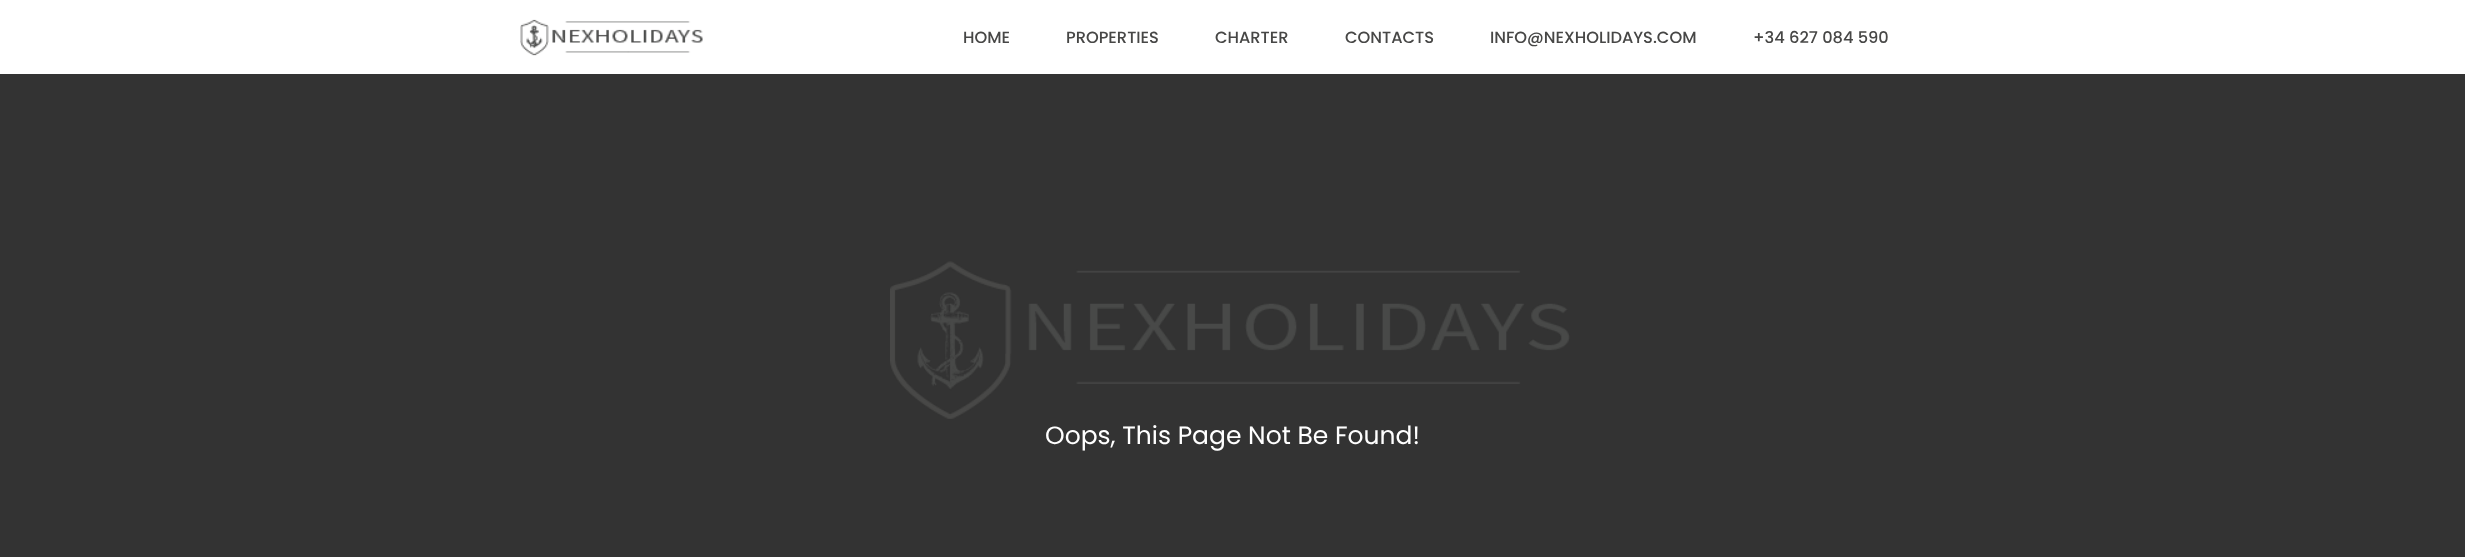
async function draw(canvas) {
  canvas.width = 2465
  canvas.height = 557
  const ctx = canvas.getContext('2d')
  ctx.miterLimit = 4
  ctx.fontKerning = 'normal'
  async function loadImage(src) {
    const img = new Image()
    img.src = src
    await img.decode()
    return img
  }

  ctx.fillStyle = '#fff'
  ctx.fillRect(0, 0, 2465, 557)
  ctx.drawImage(await loadImage('image0.png'), 520, 19, 183, 37)
  ctx.font = '500 16.25px Poppins'
  ctx.fillStyle = '#474746'
  ctx.fillText('HOME', 963, 43)
  ctx.fillText('PROPERTIES', 1066, 43)
  ctx.fillText('CHARTER', 1215, 43)
  ctx.fillText('CONTACTS', 1345, 43)
  ctx.fillText('INFO@NEXHOLIDAYS.COM', 1490, 43)
  ctx.fillText('+34 627 084 590', 1753, 43)
  ctx.fillStyle = '#333'
  ctx.fillRect(0, 74, 2465, 483)
  ctx.drawImage(await loadImage('image1.png'), 890, 261, 680, 158)
  ctx.font = '25px Poppins'
  ctx.fillStyle = '#fff'
  ctx.fillText('Oops, This Page Not Be Found!', 1045, 444)
}

draw(document.querySelector('canvas'))
